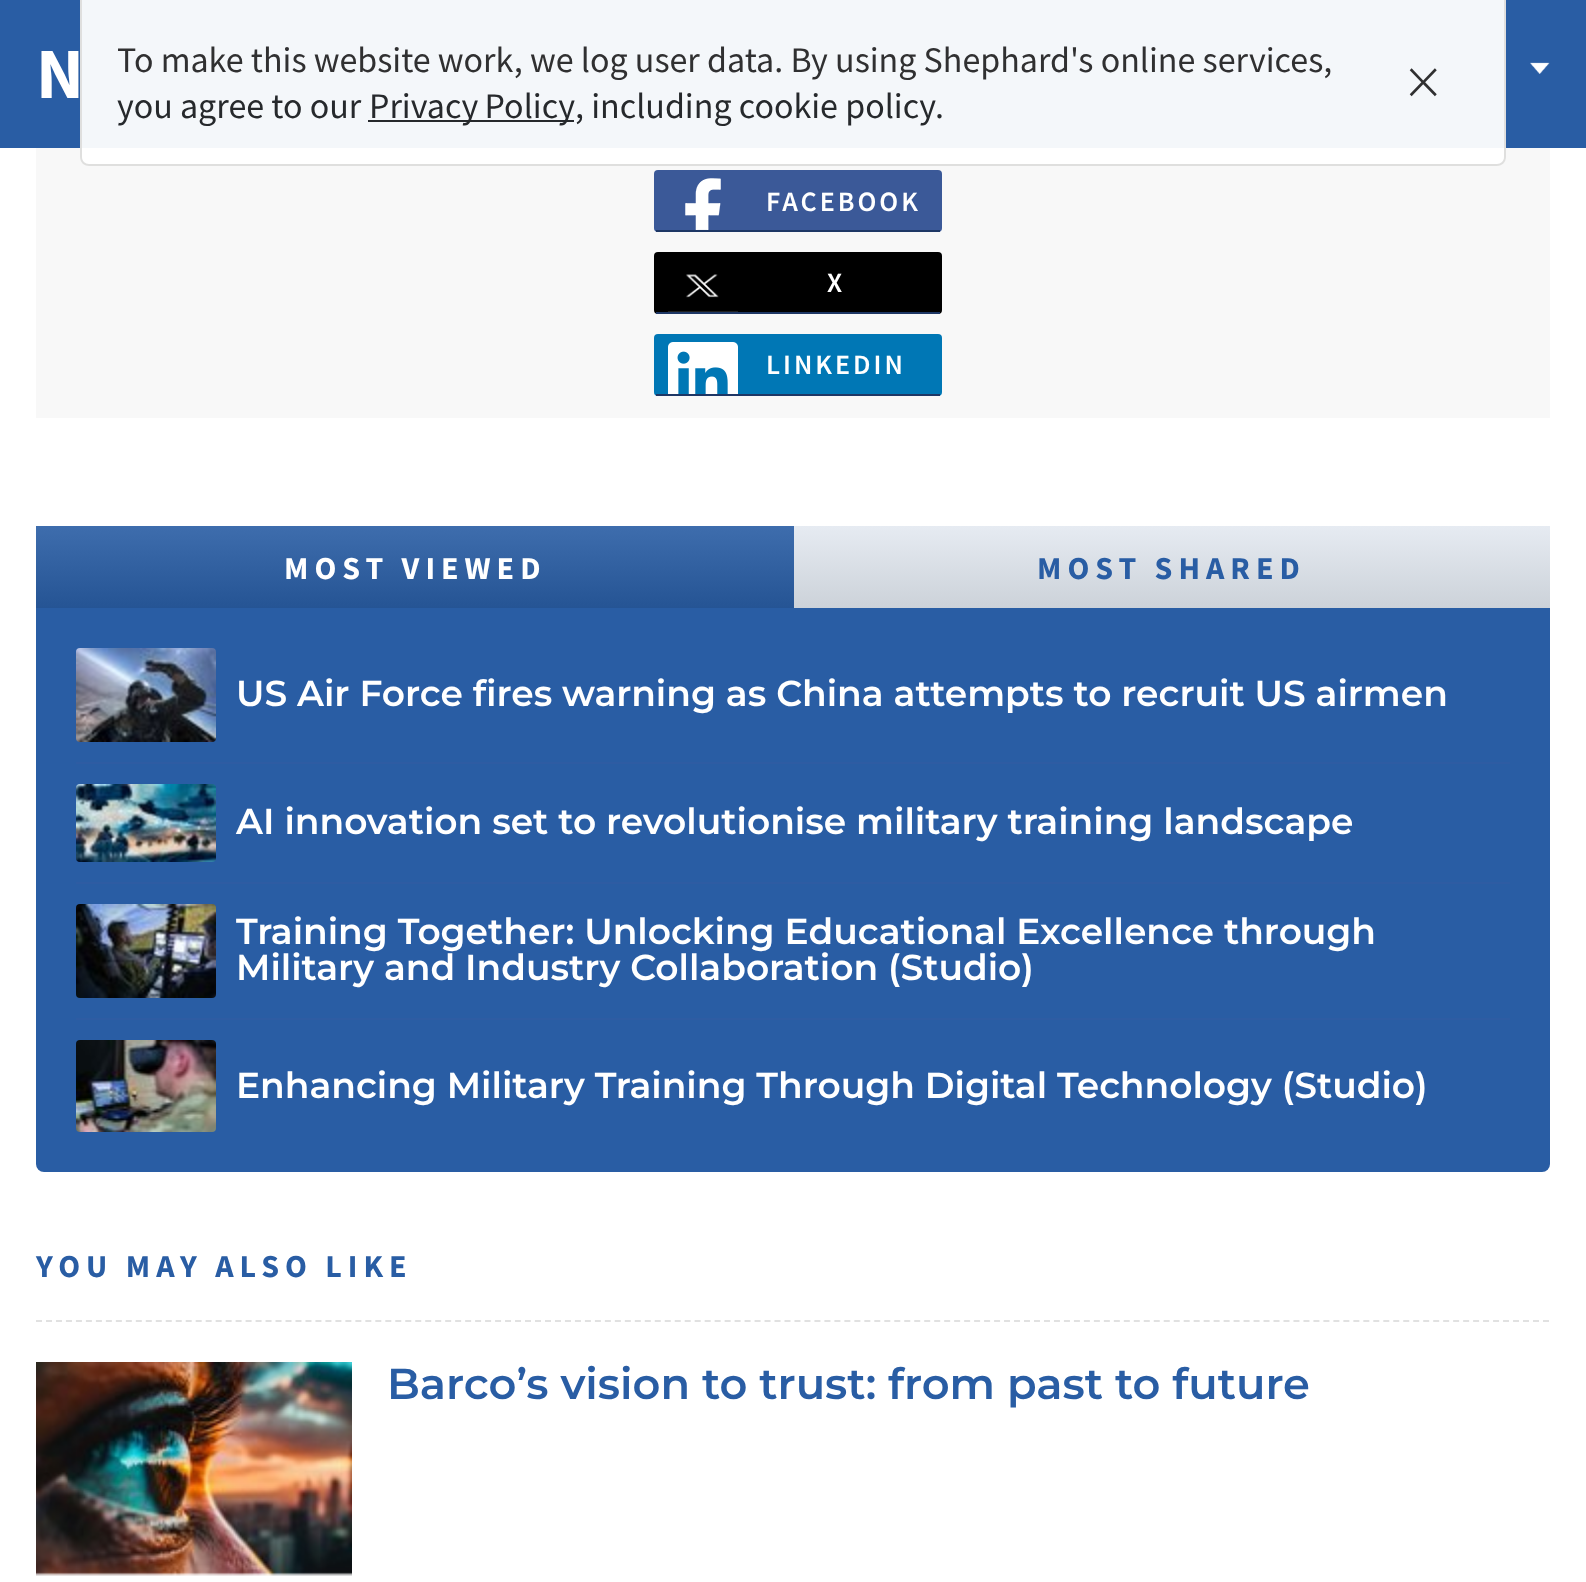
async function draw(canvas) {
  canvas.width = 1586
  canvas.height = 1582
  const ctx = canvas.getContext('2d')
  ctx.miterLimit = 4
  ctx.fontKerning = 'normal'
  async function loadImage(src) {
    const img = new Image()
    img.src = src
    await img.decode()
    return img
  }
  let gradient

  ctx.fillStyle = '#fff'
  ctx.fillRect(0, 0, 1586, 1582)
  ctx.fillStyle = '#295da4'
  ctx.fillRect(0, 0, 1586, 148)
  ctx.fillStyle = '#f8f8f8'
  ctx.fillRect(36, 148, 1514, 270)
  ctx.fillStyle = '#fffffff2'
  ctx.beginPath()
  ctx.roundRect(80, 0, 1426, 166, [0, 0, 10, 10])
  ctx.fill()
  ctx.fillStyle = '#dddddcf2'
  ctx.beginPath()
  ctx.moveTo(80, 0)
  ctx.lineTo(1506, 0)
  ctx.lineTo(1506, 157)
  ctx.bezierCurveTo(1506, 162, 1502, 166, 1497, 166)
  ctx.lineTo(89, 166)
  ctx.bezierCurveTo(84, 166, 80, 162, 80, 157)
  ctx.closePath()
  ctx.moveTo(82, 0)
  ctx.lineTo(1504, 0)
  ctx.lineTo(1504, 157)
  ctx.bezierCurveTo(1504, 161, 1501, 164, 1497, 164)
  ctx.lineTo(89, 164)
  ctx.bezierCurveTo(85, 164, 82, 161, 82, 157)
  ctx.closePath()
  ctx.fill('evenodd')
  ctx.font = '36px Source Sans Pro'
  ctx.fillStyle = '#303031'
  ctx.fillText('To make this website work, we log user data. By using Shephard\'s online services,', 117, 72)
  ctx.fillStyle = '#26292c'
  ctx.fillText('you agree to our', 117, 118)
  ctx.fillRect(368, 120, 206, 2)
  ctx.wordSpacing = '-1px'
  ctx.fillText('Privacy Policy', 369, 118)
  ctx.wordSpacing = '0px'
  ctx.fillText(', including cookie policy.', 575, 118)
  ctx.font = '300 72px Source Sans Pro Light'
  ctx.fillStyle = '#303031'
  ctx.fillText('×', 1406, 106)
  ctx.font = 'bold 72px Source Sans Pro'
  ctx.fillStyle = '#fff'
  ctx.fillText('N', 36, 98)
  ctx.drawImage(await loadImage('image0.png'), 1530, 62, 20, 12)
  ctx.fillStyle = '#3b5998'
  ctx.beginPath()
  ctx.roundRect(654, 170, 288, 62, 4)
  ctx.fill()
  ctx.drawImage(await loadImage('image1.png'), 685, 178, 36, 52)
  ctx.fillStyle = '#1e3765'
  ctx.fillRect(656, 230, 284, 2)
  ctx.letterSpacing = '3px'
  ctx.font = '600 28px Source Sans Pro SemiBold'
  ctx.fillStyle = '#fff'
  ctx.fillText('FACEBOOK', 766, 211)
  ctx.fillStyle = '#000'
  ctx.beginPath()
  ctx.roundRect(654, 252, 288, 62, 4)
  ctx.fill()
  ctx.drawImage(await loadImage('image2.png'), 668, 274, 70, 38)
  ctx.fillStyle = '#1e3765'
  ctx.fillRect(656, 312, 284, 2)
  ctx.fillStyle = '#fff'
  ctx.fillText('X', 827, 292)
  ctx.fillStyle = '#0077b5'
  ctx.beginPath()
  ctx.roundRect(654, 334, 288, 62, 4)
  ctx.fill()
  ctx.drawImage(await loadImage('image3.png'), 668, 342, 70, 52)
  ctx.fillStyle = '#1e3765'
  ctx.fillRect(656, 394, 284, 2)
  ctx.fillStyle = '#fff'
  ctx.fillText('LINKEDIN', 766, 374)
  ctx.fillStyle = '#295da4'
  ctx.beginPath()
  ctx.roundRect(36, 526, 1514, 646, [0, 0, 8, 8])
  ctx.fill()
  gradient = ctx.createLinearGradient(415, 526, 415, 608)
  gradient.addColorStop(0, '#3e6dad')
  gradient.addColorStop(1, '#255494')
  ctx.fillStyle = gradient
  ctx.fillRect(36, 526, 758, 82)
  ctx.letterSpacing = '6px'
  ctx.font = 'bold 32px Source Sans Pro'
  ctx.fillStyle = '#fff'
  ctx.fillText('MOST VIEWED', 284, 579)
  gradient = ctx.createLinearGradient(1172, 526, 1172, 608)
  gradient.addColorStop(0, '#e6ebf2')
  gradient.addColorStop(1, '#ccd2d9')
  ctx.fillStyle = gradient
  ctx.fillRect(794, 526, 756, 82)
  ctx.fillStyle = '#295da4'
  ctx.fillText('MOST SHARED', 1037, 579)
  ctx.fillStyle = '#2e5ca3'
  ctx.fillRect(76, 762, 1434, 2)
  ctx.drawImage(await loadImage('image4.png'), 76, 648, 140, 94)
  ctx.letterSpacing = '0px'
  ctx.font = '600 36px Montserrat'
  ctx.fillStyle = '#fff'
  ctx.fillText('US Air Force fires warning as China attempts to recruit US airmen', 236, 706)
  ctx.fillStyle = '#2e5ca3'
  ctx.fillRect(76, 882, 1434, 2)
  ctx.drawImage(await loadImage('image5.png'), 76, 784, 140, 78)
  ctx.fillStyle = '#fff'
  ctx.fillText('AI innovation set to revolutionise military training landscape', 236, 834)
  ctx.fillStyle = '#2e5ca3'
  ctx.fillRect(76, 1018, 1434, 2)
  ctx.drawImage(await loadImage('image6.png'), 76, 904, 140, 94)
  ctx.fillStyle = '#fff'
  ctx.fillText('Training Together: Unlocking Educational Excellence through', 236, 944)
  ctx.fillText('Military and Industry Collaboration (Studio)', 236, 980)
  ctx.drawImage(await loadImage('image7.png'), 76, 1040, 140, 92)
  ctx.fillText('Enhancing Military Training Through Digital Technology (Studio)', 236, 1098)
  ctx.beginPath()
  ctx.moveTo(36, 1321)
  ctx.lineTo(1550, 1321)
  ctx.strokeStyle = '#e1e1e1'
  ctx.lineWidth = 2
  ctx.setLineDash([6, 3.98])
  ctx.stroke()
  ctx.letterSpacing = '6px'
  ctx.font = 'bold 32px Source Sans Pro'
  ctx.fillStyle = '#295da4'
  ctx.fillText('YOU MAY ALSO LIKE', 36, 1277)
  ctx.drawImage(await loadImage('image8.png'), 36, 1362, 316, 214)
  ctx.letterSpacing = '0px'
  ctx.font = '600 43.2px Montserrat'
  ctx.fillText('Barco’s vision to trust: from past to future', 387, 1399)
}

draw(document.querySelector('canvas'))
